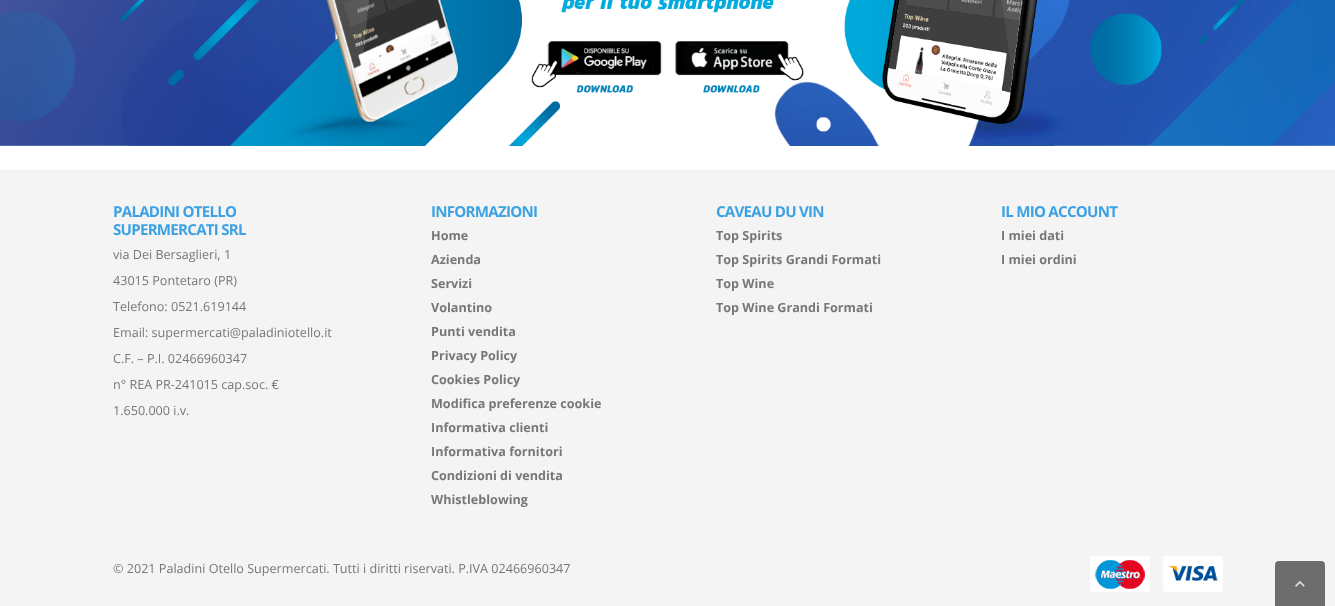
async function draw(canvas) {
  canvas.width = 1335
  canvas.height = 606
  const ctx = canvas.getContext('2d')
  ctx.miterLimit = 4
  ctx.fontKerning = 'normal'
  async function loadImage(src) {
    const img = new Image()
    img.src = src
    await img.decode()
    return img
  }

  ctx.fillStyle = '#fff'
  ctx.fillRect(0, 0, 1335, 606)
  ctx.drawImage(await loadImage('image0.png'), 0, 0, 668, 146)
  ctx.drawImage(await loadImage('image1.png'), 668, 0, 667, 146)
  ctx.fillStyle = '#f4f4f4'
  ctx.fillRect(0, 170, 1335, 436)
  ctx.letterSpacing = '-0.75px'
  ctx.font = 'bold 15.1px Open Sans'
  ctx.fillStyle = '#3ca2e3'
  ctx.fillText('PALADINI OTELLO', 113, 217)
  ctx.fillText('SUPERMERCATI SRL', 113, 235)
  ctx.letterSpacing = '0px'
  ctx.font = '12.6px Open Sans'
  ctx.fillStyle = '#777'
  ctx.fillText('via Dei Bersaglieri, 1', 113, 259)
  ctx.fillText('43015 Pontetaro (PR)', 113, 285)
  ctx.fillText('Telefono: 0521.619144', 113, 311)
  ctx.fillText('Email: supermercati@paladiniotello.it', 113, 337)
  ctx.fillText('C.F. – P.I. 02466960347', 113, 363)
  ctx.fillText('n° REA PR-241015 cap.soc. €', 113, 389)
  ctx.fillText('1.650.000 i.v.', 113, 415)
  ctx.letterSpacing = '-0.75px'
  ctx.font = 'bold 15.1px Open Sans'
  ctx.fillStyle = '#3ca2e3'
  ctx.fillText('INFORMAZIONI', 431, 217)
  ctx.letterSpacing = '0px'
  ctx.font = 'bold 12.6px Open Sans'
  ctx.fillStyle = '#777'
  ctx.fillText('Home', 431, 240)
  ctx.fillText('Azienda', 431, 264)
  ctx.fillText('Servizi', 431, 288)
  ctx.fillText('Volantino', 431, 312)
  ctx.fillText('Punti vendita', 431, 336)
  ctx.fillText('Privacy Policy', 431, 360)
  ctx.fillText('Cookies Policy', 431, 384)
  ctx.fillText('Modifica preferenze cookie', 431, 408)
  ctx.fillText('Informativa clienti', 431, 432)
  ctx.fillText('Informativa fornitori', 431, 456)
  ctx.fillText('Condizioni di vendita', 431, 480)
  ctx.fillText('Whistleblowing', 431, 504)
  ctx.letterSpacing = '-0.75px'
  ctx.font = 'bold 15.1px Open Sans'
  ctx.fillStyle = '#3ca2e3'
  ctx.fillText('CAVEAU DU VIN', 716, 217)
  ctx.letterSpacing = '0px'
  ctx.font = 'bold 12.6px Open Sans'
  ctx.fillStyle = '#777'
  ctx.fillText('Top Spirits', 716, 240)
  ctx.fillText('Top Spirits Grandi Formati', 716, 264)
  ctx.fillText('Top Wine', 716, 288)
  ctx.fillText('Top Wine Grandi Formati', 716, 312)
  ctx.letterSpacing = '-0.75px'
  ctx.font = 'bold 15.1px Open Sans'
  ctx.fillStyle = '#3ca2e3'
  ctx.fillText('IL MIO ACCOUNT', 1001, 217)
  ctx.letterSpacing = '0px'
  ctx.font = 'bold 12.6px Open Sans'
  ctx.fillStyle = '#777'
  ctx.fillText('I miei dati', 1001, 240)
  ctx.fillText('I miei ordini', 1001, 264)
  ctx.font = '12.6px Open Sans'
  ctx.fillText('© 2021 Paladini Otello Supermercati. Tutti i diritti riservati. P.IVA 02466960347', 113, 573)
  ctx.drawImage(await loadImage('image2.png'), 1090, 556, 133, 36)
  ctx.fillStyle = '#6d6d6d'
  ctx.beginPath()
  ctx.roundRect(1275, 561, 50, 45, [4, 4, 0, 0])
  ctx.fill()
  ctx.drawImage(await loadImage('image3.png'), 1295, 581, 10, 6)
}

draw(document.querySelector('canvas'))
